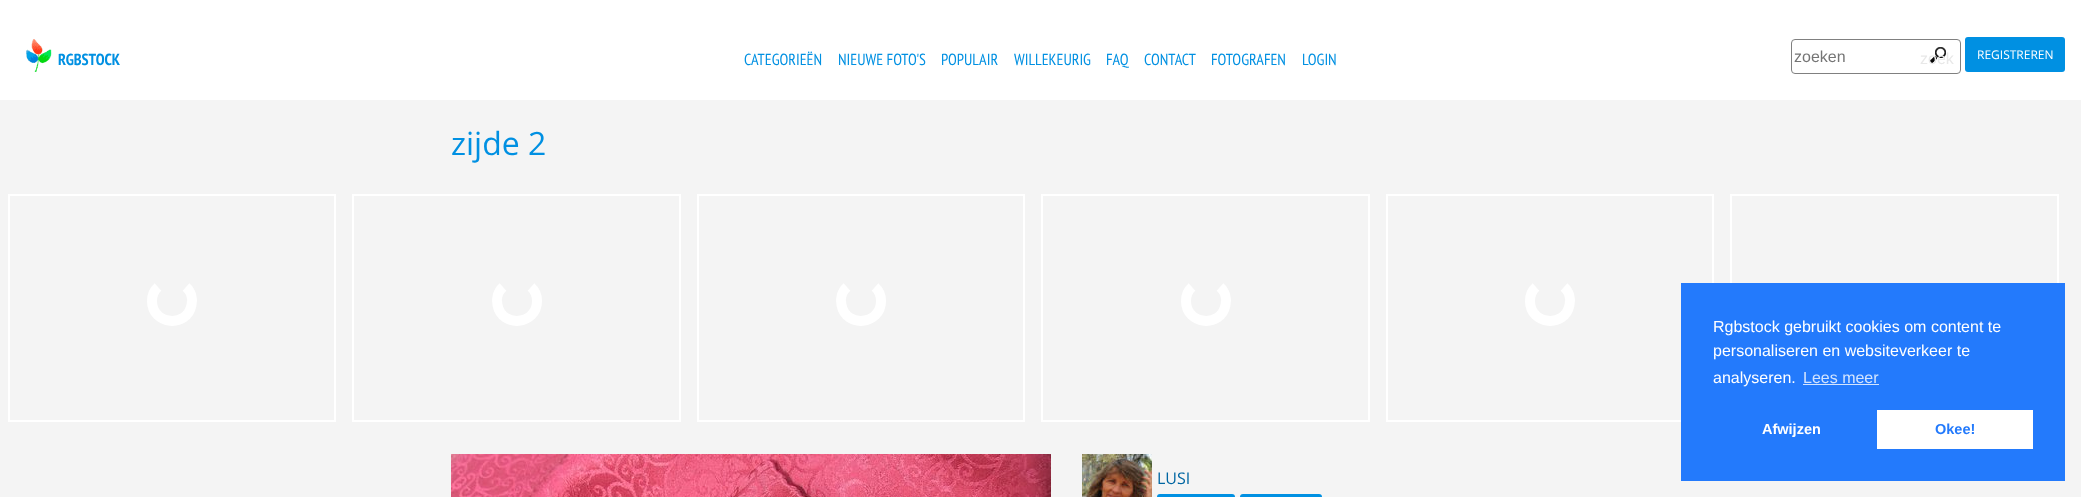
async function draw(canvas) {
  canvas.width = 2081
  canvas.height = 497
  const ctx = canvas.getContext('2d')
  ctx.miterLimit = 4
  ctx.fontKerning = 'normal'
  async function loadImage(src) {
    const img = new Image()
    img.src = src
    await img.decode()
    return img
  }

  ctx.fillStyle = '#f4f4f4'
  ctx.fillRect(0, 0, 2081, 497)
  ctx.fillStyle = '#fff'
  ctx.fillRect(0, 0, 2081, 100)
  ctx.drawImage(await loadImage('image0.png'), 26, 39, 26, 33)
  ctx.font = 'bold 16px PT Sans Narrow'
  ctx.fillStyle = '#0090e2'
  ctx.fillText('RGBSTOCK', 58, 65)
  ctx.font = '16px PT Sans Narrow'
  ctx.fillText('CATEGORIEËN', 744, 65)
  ctx.fillText('NIEUWE FOTO\'S', 838, 65)
  ctx.fillText('POPULAIR', 941, 65)
  ctx.fillText('WILLEKEURIG', 1014, 65)
  ctx.fillText('FAQ', 1106, 65)
  ctx.fillText('CONTACT', 1144, 65)
  ctx.fillText('FOTOGRAFEN', 1211, 65)
  ctx.fillText('LOGIN', 1302, 65)
  ctx.beginPath()
  ctx.roundRect(1791.5, 39.5, 169, 34, 3.5)
  ctx.strokeStyle = '#808080'
  ctx.stroke()
  ctx.font = '16px Liberation Sans'
  ctx.fillStyle = '#757575'
  ctx.fillText('zoeken', 1794, 62)
  ctx.drawImage(await loadImage('image1.png'), 1930, 47, 16, 16)
  ctx.fillStyle = '#e8e8e8'
  ctx.fillText('zoek', 1920, 64)
  ctx.fillStyle = '#0090e2'
  ctx.beginPath()
  ctx.roundRect(1965, 37, 100, 35, 3)
  ctx.fill()
  ctx.font = '12px Open Sans'
  ctx.fillStyle = '#fff'
  ctx.fillText('REGISTREREN', 1977, 59)
  ctx.font = '32px Open Sans'
  ctx.fillStyle = '#0090e2'
  ctx.fillText('zijde 2', 451, 155)
  ctx.strokeStyle = '#fff'
  ctx.lineWidth = 2
  ctx.strokeRect(9, 195, 326, 226)
  ctx.beginPath()
  ctx.moveTo(186, 287)
  ctx.bezierCurveTo(191, 291.5, 193, 298.5, 191.5, 305)
  ctx.bezierCurveTo(187, 328.5, 152, 325, 152, 301)
  ctx.bezierCurveTo(152, 295.5, 154, 290.5, 158, 287)
  ctx.lineWidth = 10
  ctx.stroke()
  ctx.lineWidth = 2
  ctx.strokeRect(353, 195, 327, 226)
  ctx.beginPath()
  ctx.moveTo(531, 287)
  ctx.bezierCurveTo(535, 290.5, 537, 295.5, 537, 301)
  ctx.bezierCurveTo(537, 325, 502, 328.5, 497.5, 305)
  ctx.bezierCurveTo(496, 298.5, 498, 291.5, 503, 287)
  ctx.lineWidth = 10
  ctx.stroke()
  ctx.lineWidth = 2
  ctx.strokeRect(698, 195, 326, 226)
  ctx.beginPath()
  ctx.moveTo(875, 287)
  ctx.bezierCurveTo(879, 290.5, 881, 295.5, 881, 301)
  ctx.bezierCurveTo(881, 325, 846, 328.5, 841.5, 305)
  ctx.bezierCurveTo(840, 298.5, 842, 291.5, 847, 287)
  ctx.lineWidth = 10
  ctx.stroke()
  ctx.lineWidth = 2
  ctx.strokeRect(1042, 195, 327, 226)
  ctx.beginPath()
  ctx.moveTo(1220, 287)
  ctx.bezierCurveTo(1225, 291.5, 1227, 298.5, 1225.5, 305)
  ctx.bezierCurveTo(1221, 328.5, 1186, 325, 1186, 301)
  ctx.bezierCurveTo(1186, 295.5, 1188, 290.5, 1192, 287)
  ctx.lineWidth = 10
  ctx.stroke()
  ctx.lineWidth = 2
  ctx.strokeRect(1387, 195, 326, 226)
  ctx.beginPath()
  ctx.moveTo(1564, 287)
  ctx.bezierCurveTo(1569, 291.5, 1571, 298.5, 1569.5, 305)
  ctx.bezierCurveTo(1565, 328.5, 1530, 325, 1530, 301)
  ctx.bezierCurveTo(1530, 295.5, 1532, 290.5, 1536, 287)
  ctx.lineWidth = 10
  ctx.stroke()
  ctx.lineWidth = 2
  ctx.strokeRect(1731, 195, 327, 226)
  ctx.drawImage(await loadImage('image2.png'), 451, 454, 600, 43)
  ctx.drawImage(await loadImage('image3.png'), 1082, 454, 70, 43)
  ctx.font = '16px Open Sans'
  ctx.fillStyle = '#0066a2'
  ctx.fillText('LUSI', 1157, 484)
  ctx.fillStyle = '#0090e2'
  ctx.beginPath()
  ctx.roundRect(1157, 494, 78, 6, 3)
  ctx.fill()
  ctx.beginPath()
  ctx.roundRect(1240, 494, 82, 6, 3)
  ctx.fill()
  ctx.fillStyle = '#237afc'
  ctx.fillRect(1681, 283, 384, 198)
  ctx.font = '16px Liberation Sans'
  ctx.fillStyle = '#fff'
  ctx.fillText('Rgbstock gebruikt cookies om content te', 1713, 332)
  ctx.fillText('personaliseren en websiteverkeer te', 1713, 356)
  ctx.fillText('analyseren.', 1713, 383)
  ctx.fillStyle = '#d3e4fe'
  ctx.fillText('Lees meer', 1803, 383)
  ctx.fillRect(1803, 384, 76, 1)
  ctx.font = 'bold 14.5px Liberation Sans'
  ctx.fillStyle = '#fff'
  ctx.fillText('Afwijzen', 1762, 434)
  ctx.fillRect(1877, 410, 156, 39)
  ctx.fillStyle = '#237afc'
  ctx.fillText('Okee!', 1935, 434)
}

draw(document.querySelector('canvas'))
